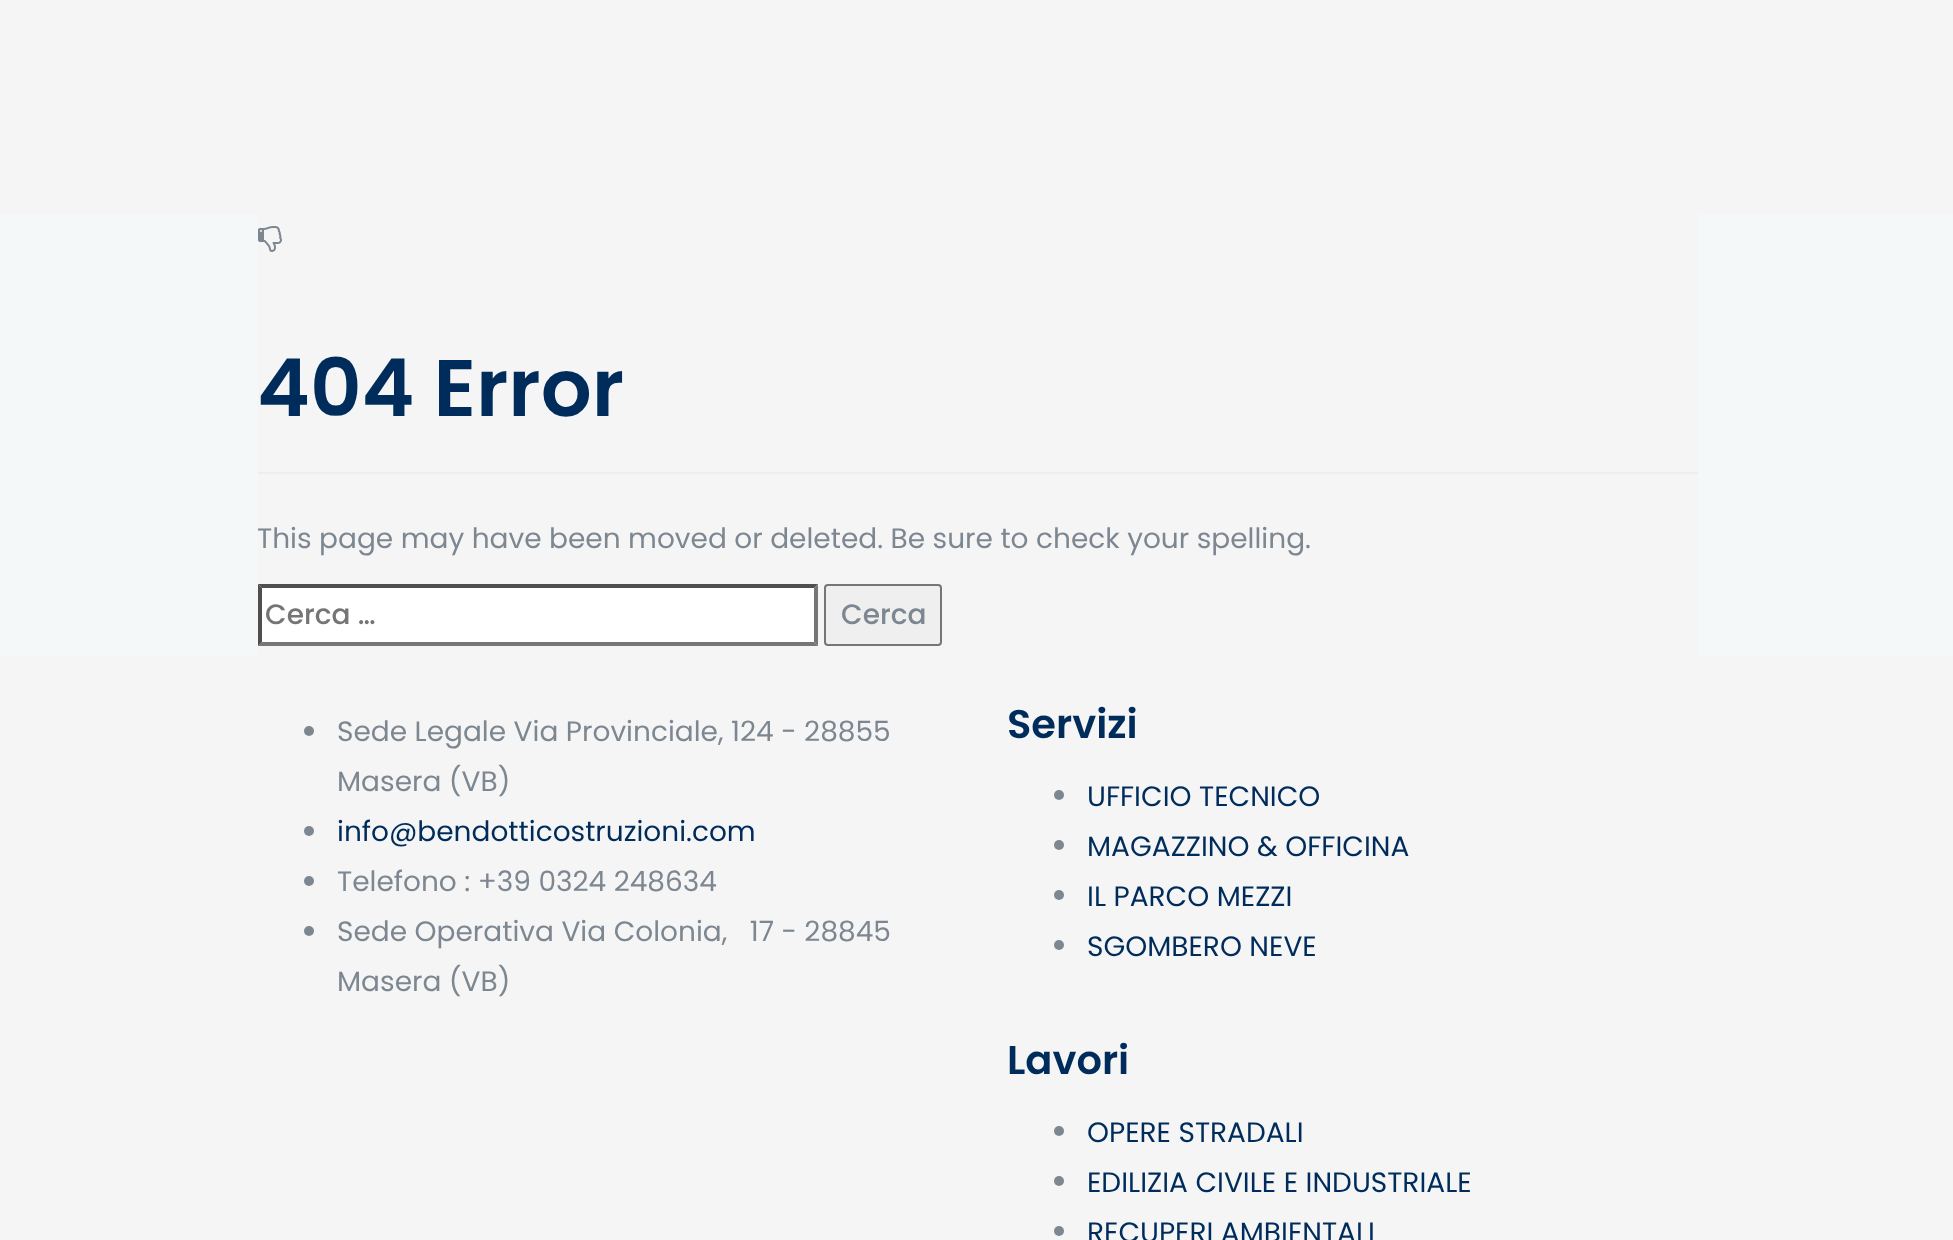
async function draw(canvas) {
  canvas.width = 1953
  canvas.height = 1240
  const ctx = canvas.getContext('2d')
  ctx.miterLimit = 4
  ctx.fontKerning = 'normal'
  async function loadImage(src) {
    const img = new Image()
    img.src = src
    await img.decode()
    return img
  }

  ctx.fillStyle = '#f5f5f5'
  ctx.fillRect(0, 0, 1953, 1240)
  ctx.fillStyle = '#f5f8f9'
  ctx.fillRect(0, 214, 1953, 442)
  ctx.fillStyle = '#f5f5f5'
  ctx.fillRect(258, 214, 1440, 442)
  ctx.drawImage(await loadImage('image0.png'), 258, 226, 24, 26)
  ctx.fillStyle = '#eee'
  ctx.fillRect(258, 472, 1440, 2)
  ctx.font = '600 80px Poppins'
  ctx.fillStyle = '#002c5b'
  ctx.fillText('404 Error', 257, 416)
  ctx.font = '28px Poppins'
  ctx.fillStyle = '#7d8791'
  ctx.fillText('This page may have been moved or deleted. Be sure to check your spelling.', 257, 548)
  ctx.fillStyle = '#fff'
  ctx.fillRect(258, 584, 560, 62)
  ctx.fillStyle = '#4f4f4f'
  ctx.beginPath()
  ctx.moveTo(258, 584)
  ctx.lineTo(818, 584)
  ctx.lineTo(814, 588)
  ctx.lineTo(262, 588)
  ctx.closePath()
  ctx.fill()
  ctx.fillStyle = '#767676'
  ctx.beginPath()
  ctx.moveTo(818, 584)
  ctx.lineTo(818, 646)
  ctx.lineTo(814, 642)
  ctx.lineTo(814, 588)
  ctx.closePath()
  ctx.fill()
  ctx.beginPath()
  ctx.moveTo(818, 646)
  ctx.lineTo(258, 646)
  ctx.lineTo(262, 642)
  ctx.lineTo(814, 642)
  ctx.closePath()
  ctx.fill()
  ctx.fillStyle = '#4f4f4f'
  ctx.beginPath()
  ctx.moveTo(258, 646)
  ctx.lineTo(258, 584)
  ctx.lineTo(262, 588)
  ctx.lineTo(262, 642)
  ctx.closePath()
  ctx.fill()
  ctx.font = '500 28px Poppins'
  ctx.fillStyle = '#757575'
  ctx.fillText('Cerca …', 265, 624)
  ctx.fillStyle = '#efefef'
  ctx.beginPath()
  ctx.roundRect(825, 585, 116, 60, 3)
  ctx.fill()
  ctx.strokeStyle = '#767676'
  ctx.lineWidth = 2
  ctx.stroke()
  ctx.fillStyle = '#7d8791'
  ctx.fillText('Cerca', 841, 624)
  ctx.beginPath()
  ctx.arc(309, 731, 5, 0, 2 * Math.PI)
  ctx.fill()
  ctx.font = '28px Poppins'
  ctx.fillText('Sede Legale Via Provinciale, 124 - 28855', 337, 741)
  ctx.fillText('Masera (VB)', 337, 791)
  ctx.beginPath()
  ctx.arc(309, 831, 5, 0, 2 * Math.PI)
  ctx.fill()
  ctx.fillStyle = '#002c5b'
  ctx.fillText('info@bendotticostruzioni.com', 337, 841)
  ctx.fillStyle = '#7d8791'
  ctx.beginPath()
  ctx.arc(309, 881, 5, 0, 2 * Math.PI)
  ctx.fill()
  ctx.fillText('Telefono : +39 0324 248634', 337, 891)
  ctx.beginPath()
  ctx.arc(309, 931, 5, 0, 2 * Math.PI)
  ctx.fill()
  ctx.fillText('Sede Operativa Via Colonia,   17 - 28845', 337, 941)
  ctx.fillText('Masera (VB)', 337, 991)
  ctx.font = '600 40px Poppins'
  ctx.fillStyle = '#002c5b'
  ctx.fillText('Servizi', 1007, 738)
  ctx.fillStyle = '#7d8791'
  ctx.beginPath()
  ctx.arc(1059, 795, 5, 0, 2 * Math.PI)
  ctx.fill()
  ctx.font = '28px Poppins'
  ctx.fillStyle = '#002c5b'
  ctx.fillText('UFFICIO TECNICO', 1087, 806)
  ctx.fillStyle = '#7d8791'
  ctx.beginPath()
  ctx.arc(1059, 845, 5, 0, 2 * Math.PI)
  ctx.fill()
  ctx.fillStyle = '#002c5b'
  ctx.fillText('MAGAZZINO & OFFICINA', 1087, 856)
  ctx.fillStyle = '#7d8791'
  ctx.beginPath()
  ctx.arc(1059, 895, 5, 0, 2 * Math.PI)
  ctx.fill()
  ctx.fillStyle = '#002c5b'
  ctx.fillText('IL PARCO MEZZI', 1087, 906)
  ctx.fillStyle = '#7d8791'
  ctx.beginPath()
  ctx.arc(1059, 945, 5, 0, 2 * Math.PI)
  ctx.fill()
  ctx.fillStyle = '#002c5b'
  ctx.fillText('SGOMBERO NEVE', 1087, 956)
  ctx.font = '600 40px Poppins'
  ctx.fillText('Lavori', 1007, 1074)
  ctx.fillStyle = '#7d8791'
  ctx.beginPath()
  ctx.arc(1059, 1131, 5, 0, 2 * Math.PI)
  ctx.fill()
  ctx.font = '28px Poppins'
  ctx.fillStyle = '#002c5b'
  ctx.fillText('OPERE STRADALI', 1087, 1142)
  ctx.fillStyle = '#7d8791'
  ctx.beginPath()
  ctx.arc(1059, 1181, 5, 0, 2 * Math.PI)
  ctx.fill()
  ctx.fillStyle = '#002c5b'
  ctx.fillText('EDILIZIA CIVILE E INDUSTRIALE', 1087, 1192)
  ctx.fillStyle = '#7d8791'
  ctx.beginPath()
  ctx.arc(1059, 1231, 5, 0, 2 * Math.PI)
  ctx.fill()
  ctx.fillStyle = '#002c5b'
  ctx.fillText('RECUPERI AMBIENTALI', 1087, 1242)
}

draw(document.querySelector('canvas'))
